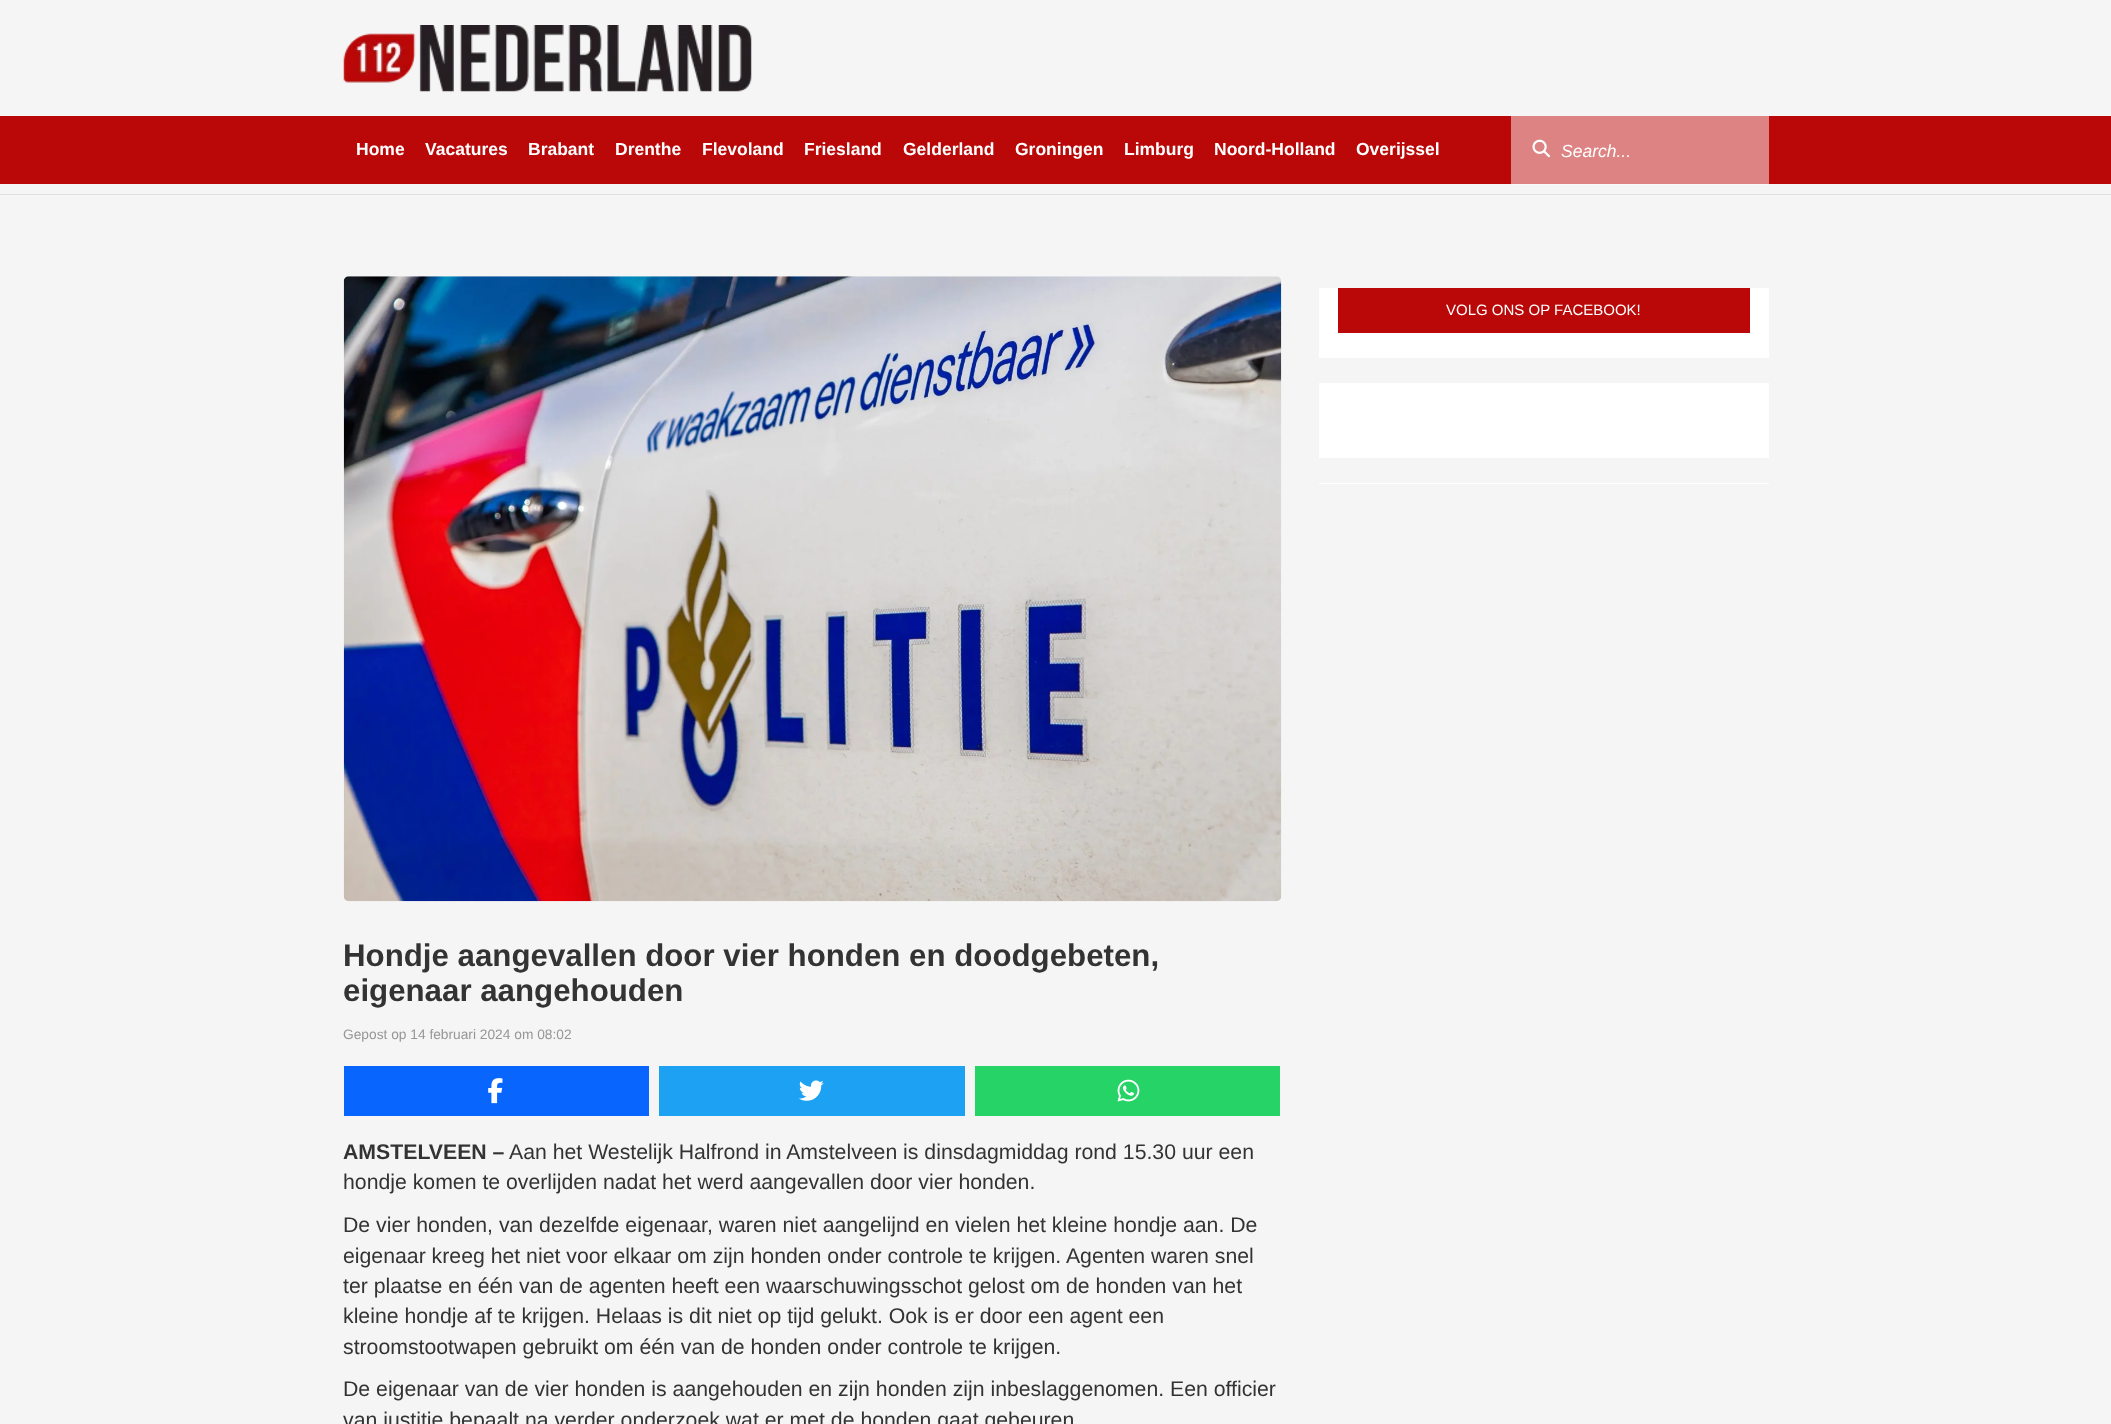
async function draw(canvas) {
  canvas.width = 2111
  canvas.height = 1424
  const ctx = canvas.getContext('2d')
  ctx.miterLimit = 4
  ctx.fontKerning = 'normal'
  async function loadImage(src) {
    const img = new Image()
    img.src = src
    await img.decode()
    return img
  }

  ctx.fillStyle = '#f5f5f5'
  ctx.fillRect(0, 0, 2111, 1424)
  ctx.fillStyle = '#fafafa'
  ctx.fillRect(1511, 184, 258, 1)
  ctx.fillStyle = '#e1e0e0'
  ctx.fillRect(0, 194, 2111, 1)
  ctx.drawImage(await loadImage('image0.png'), 343, 25, 409, 67)
  ctx.fillStyle = '#ba0707'
  ctx.fillRect(0, 116, 2111, 68)
  ctx.fillStyle = '#dd8383'
  ctx.fillRect(1511, 116, 258, 68)
  ctx.font = 'bold 17.5px Liberation Sans'
  ctx.fillStyle = '#fff'
  ctx.fillText('Home', 356, 155)
  ctx.fillText('Vacatures', 425, 155)
  ctx.fillText('Brabant', 528, 155)
  ctx.fillText('Drenthe', 615, 155)
  ctx.fillText('Flevoland', 702, 155)
  ctx.fillText('Friesland', 804, 155)
  ctx.fillText('Gelderland', 903, 155)
  ctx.fillText('Groningen', 1015, 155)
  ctx.fillText('Limburg', 1124, 155)
  ctx.fillText('Noord-Holland', 1214, 155)
  ctx.fillText('Overijssel', 1356, 155)
  ctx.drawImage(await loadImage('image1.png'), 1532, 139, 18, 19)
  ctx.font = 'italic 17.5px Liberation Sans'
  ctx.fillText('Search...', 1561, 157)
  ctx.fillRect(1319, 288, 450, 70)
  ctx.fillStyle = '#ba0707'
  ctx.fillRect(1338, 288, 412, 45)
  ctx.font = '15px Liberation Sans'
  ctx.fillStyle = '#fff'
  ctx.fillText('VOLG ONS OP FACEBOOK!', 1446, 315)
  ctx.fillRect(1319, 383, 450, 75)
  ctx.fillRect(1319, 483, 450, 1)
  ctx.drawImage(await loadImage('image2.png'), 343, 276, 939, 626)
  ctx.font = 'bold 31.25px Liberation Sans'
  ctx.fillStyle = '#333'
  ctx.fillText('Hondje aangevallen door vier honden en doodgebeten,', 343, 966)
  ctx.fillText('eigenaar aangehouden', 343, 1001)
  ctx.font = '13.75px Liberation Sans'
  ctx.fillStyle = '#969696'
  ctx.fillText('Gepost op 14 februari 2024 om 08:02', 343, 1039)
  ctx.fillStyle = '#0866ff'
  ctx.fillRect(344, 1066, 305, 50)
  ctx.drawImage(await loadImage('image3.png'), 488, 1078, 15, 26)
  ctx.fillStyle = '#1da1f2'
  ctx.fillRect(659, 1066, 306, 50)
  ctx.drawImage(await loadImage('image4.png'), 798, 1080, 26, 21)
  ctx.fillStyle = '#25d366'
  ctx.fillRect(975, 1066, 305, 50)
  ctx.drawImage(await loadImage('image5.png'), 1117, 1079, 23, 23)
  ctx.font = 'bold 21.25px Liberation Sans'
  ctx.fillStyle = '#333'
  ctx.fillText('AMSTELVEEN –', 343, 1159)
  ctx.font = '21.25px Liberation Sans'
  ctx.fillText('Aan het Westelijk Halfrond in Amstelveen is dinsdagmiddag rond 15.30 uur een', 509, 1159)
  ctx.fillText('hondje komen te overlijden nadat het werd aangevallen door vier honden.', 343, 1189)
  ctx.fillText('De vier honden, van dezelfde eigenaar, waren niet aangelijnd en vielen het kleine hondje aan. De', 343, 1232)
  ctx.fillText('eigenaar kreeg het niet voor elkaar om zijn honden onder controle te krijgen. Agenten waren snel', 343, 1263)
  ctx.fillText('ter plaatse en één van de agenten heeft een waarschuwingsschot gelost om de honden van het', 343, 1293)
  ctx.fillText('kleine hondje af te krijgen. Helaas is dit niet op tijd gelukt. Ook is er door een agent een', 343, 1323)
  ctx.fillText('stroomstootwapen gebruikt om één van de honden onder controle te krijgen.', 343, 1354)
  ctx.fillText('De eigenaar van de vier honden is aangehouden en zijn honden zijn inbeslaggenomen. Een officier', 343, 1396)
  ctx.fillText('van justitie bepaalt na verder onderzoek wat er met de honden gaat gebeuren', 343, 1427)
}

draw(document.querySelector('canvas'))
